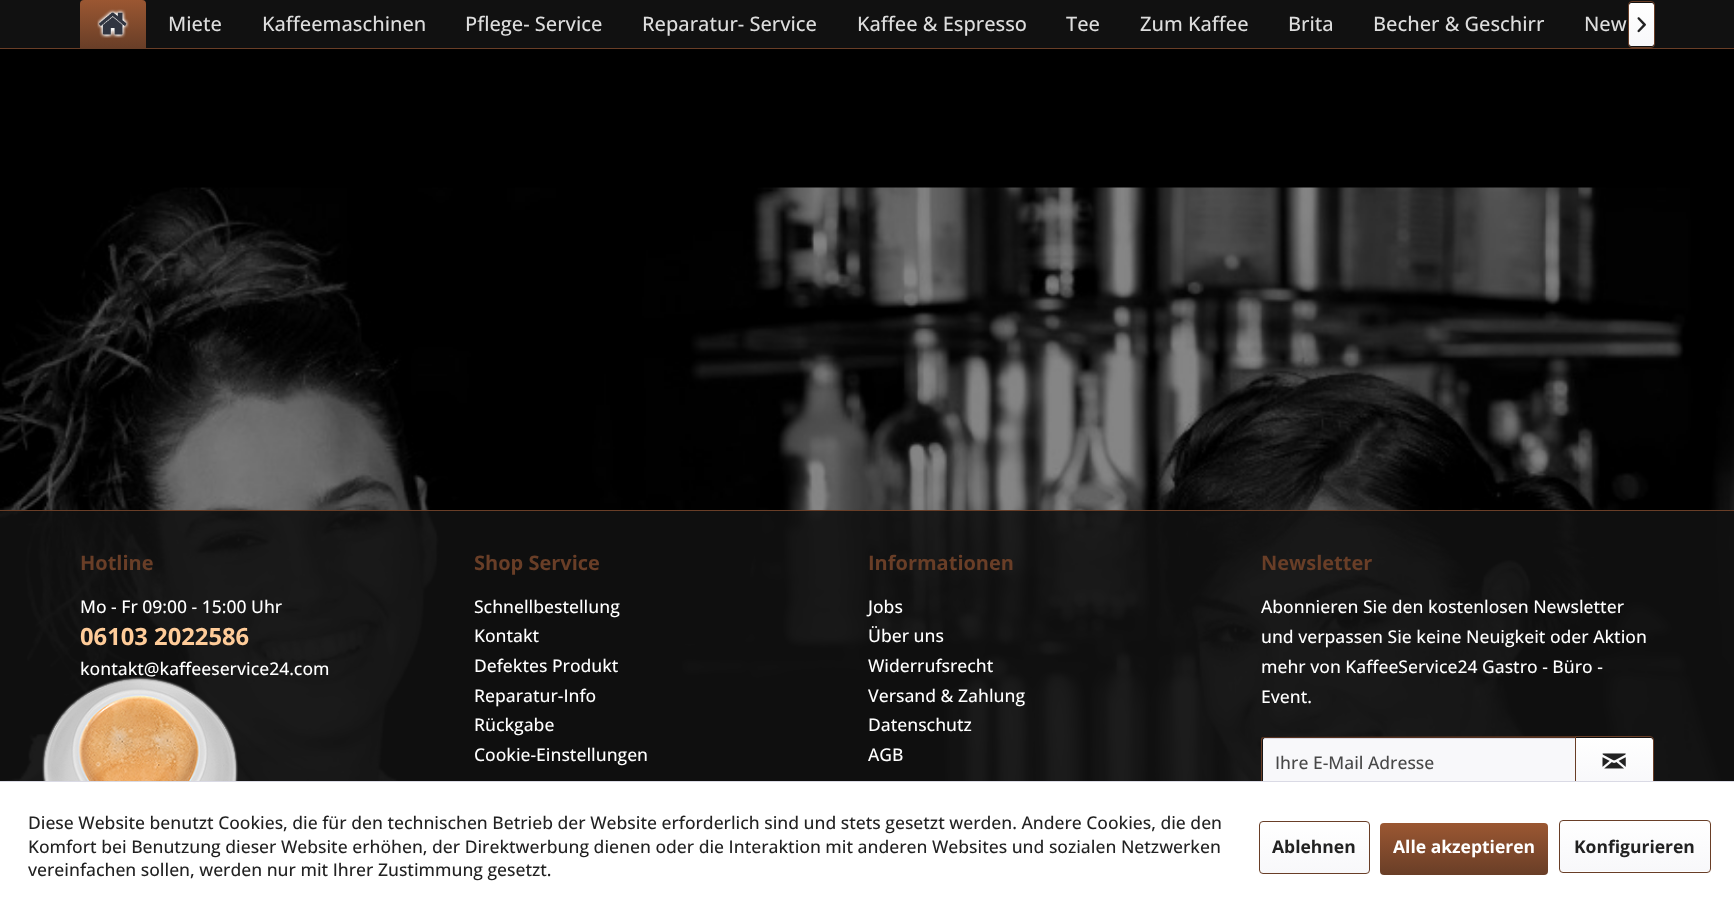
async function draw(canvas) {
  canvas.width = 1734
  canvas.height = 908
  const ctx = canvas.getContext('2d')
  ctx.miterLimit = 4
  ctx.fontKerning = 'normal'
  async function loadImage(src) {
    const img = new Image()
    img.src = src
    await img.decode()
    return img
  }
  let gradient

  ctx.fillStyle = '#000'
  ctx.fillRect(0, 0, 1734, 908)
  ctx.drawImage(await loadImage('image0.png'), 0, 187, 1734, 594)
  ctx.fillStyle = '#111'
  ctx.fillRect(0, 0, 1734, 48)
  ctx.fillStyle = '#693e27'
  ctx.fillRect(0, 48, 1734, 1)
  gradient = ctx.createLinearGradient(113, 0, 113, 48)
  gradient.addColorStop(0, '#9b5732')
  gradient.addColorStop(1, '#693e27')
  ctx.fillStyle = gradient
  ctx.beginPath()
  ctx.roundRect(80, 0, 66, 48, [4, 4, 0, 0])
  ctx.fill()
  ctx.drawImage(await loadImage('image1.png'), 97, 9, 32, 29)
  ctx.font = '500 20px Open Sans'
  ctx.fillStyle = '#ddd'
  ctx.fillText('Miete', 168, 31)
  ctx.fillText('Kaffeemaschinen', 262, 31)
  ctx.fillText('Pflege- Service', 465, 31)
  ctx.fillText('Reparatur- Service', 642, 31)
  ctx.fillText('Kaffee & Espresso', 857, 31)
  ctx.fillText('Tee', 1066, 31)
  ctx.fillText('Zum Kaffee', 1140, 31)
  ctx.fillText('Brita', 1288, 31)
  ctx.fillText('Becher & Geschirr', 1373, 31)
  ctx.fillText('New', 1584, 31)
  gradient = ctx.createLinearGradient(1641, 2.5, 1641, 46)
  gradient.addColorStop(0, '#fff')
  gradient.addColorStop(1, '#f8f8fa')
  ctx.fillStyle = gradient
  ctx.beginPath()
  ctx.roundRect(1629, 3, 25, 43, 2.5)
  ctx.fill()
  ctx.beginPath()
  ctx.roundRect(1628.5, 1.5, 26, 46, 3.5)
  ctx.strokeStyle = '#693e27'
  ctx.stroke()
  ctx.drawImage(await loadImage('image2.png'), 1637, 17, 9, 16)
  ctx.fillStyle = '#111111e6'
  ctx.fillRect(0, 511, 1734, 270)
  ctx.drawImage(await loadImage('image3.png'), 42, 677, 196, 104)
  ctx.fillStyle = '#693e27'
  ctx.fillRect(0, 510, 1734, 1)
  ctx.font = 'bold 20px Open Sans'
  ctx.fillText('Hotline', 80, 570)
  ctx.font = '500 17.5px Open Sans'
  ctx.fillStyle = '#fff'
  ctx.fillText('Mo - Fr 09:00 - 15:00 Uhr', 80, 613)
  ctx.font = 'bold 23.75px Open Sans'
  ctx.fillStyle = '#fc9'
  ctx.fillText('06103 2022586', 80, 645)
  ctx.font = '500 17.5px Open Sans'
  ctx.fillStyle = '#fff'
  ctx.fillText('kontakt@kaffeeservice24.com', 80, 675)
  ctx.font = 'bold 20px Open Sans'
  ctx.fillStyle = '#693e27'
  ctx.fillText('Shop Service', 474, 570)
  ctx.font = '500 17.5px Open Sans'
  ctx.fillStyle = '#fff'
  ctx.fillText('Schnellbestellung', 474, 613)
  ctx.fillText('Kontakt', 474, 642)
  ctx.fillText('Defektes Produkt', 474, 672)
  ctx.fillText('Reparatur-Info', 474, 702)
  ctx.fillText('Rückgabe', 474, 731)
  ctx.fillText('Cookie-Einstellungen', 474, 761)
  ctx.font = 'bold 20px Open Sans'
  ctx.fillStyle = '#693e27'
  ctx.fillText('Informationen', 868, 570)
  ctx.font = '500 17.5px Open Sans'
  ctx.fillStyle = '#fff'
  ctx.fillText('Jobs', 868, 613)
  ctx.fillText('Über uns', 868, 642)
  ctx.fillText('Widerrufsrecht', 868, 672)
  ctx.fillText('Versand & Zahlung', 868, 702)
  ctx.fillText('Datenschutz', 868, 731)
  ctx.fillText('AGB', 868, 761)
  ctx.font = 'bold 20px Open Sans'
  ctx.fillStyle = '#693e27'
  ctx.fillText('Newsletter', 1261, 570)
  ctx.font = '500 17.5px Open Sans'
  ctx.fillStyle = '#fff'
  ctx.fillText('Abonnieren Sie den kostenlosen Newsletter', 1261, 613)
  ctx.fillText('und verpassen Sie keine Neuigkeit oder Aktion', 1261, 643)
  ctx.fillText('mehr von KaffeeService24 Gastro - Büro -', 1261, 673)
  ctx.fillText('Event.', 1261, 703)
  ctx.fillStyle = '#f8f8fa'
  ctx.beginPath()
  ctx.roundRect(1263, 738, 312, 47, [2.5, 0, 0, 2.5])
  ctx.fill()
  ctx.fillStyle = '#dadae5'
  ctx.beginPath()
  ctx.moveTo(1265, 739)
  ctx.lineTo(1575, 739)
  ctx.lineTo(1575, 738)
  ctx.lineTo(1266, 738)
  ctx.bezierCurveTo(1264, 738, 1264, 739, 1263, 740)
  ctx.closePath()
  ctx.fill()
  ctx.fillStyle = '#563320'
  ctx.beginPath()
  ctx.moveTo(1265, 738)
  ctx.lineTo(1263, 738)
  ctx.lineTo(1262, 737)
  ctx.lineTo(1263, 737)
  ctx.lineTo(1576, 736)
  ctx.lineTo(1574, 738)
  ctx.closePath()
  ctx.fill()
  ctx.fillStyle = '#693e27'
  ctx.beginPath()
  ctx.moveTo(1576, 736)
  ctx.lineTo(1576, 786)
  ctx.lineTo(1575, 785)
  ctx.lineTo(1575, 738)
  ctx.lineTo(1574, 738)
  ctx.closePath()
  ctx.fill()
  ctx.beginPath()
  ctx.moveTo(1261, 739)
  ctx.lineTo(1262, 737)
  ctx.lineTo(1263, 738)
  ctx.lineTo(1262, 740)
  ctx.lineTo(1262, 782)
  ctx.lineTo(1263, 784)
  ctx.lineTo(1262, 785)
  ctx.lineTo(1261, 784)
  ctx.closePath()
  ctx.fill()
  ctx.fillStyle = '#484848'
  ctx.fillText('Ihre E-Mail Adresse', 1275, 769)
  gradient = ctx.createLinearGradient(1614, 738, 1614, 785)
  gradient.addColorStop(0, '#fff')
  gradient.addColorStop(1, '#f8f8fa')
  ctx.fillStyle = gradient
  ctx.beginPath()
  ctx.roundRect(1576, 738, 77, 47, [0, 2.5, 2.5, 0])
  ctx.fill()
  ctx.beginPath()
  ctx.roundRect(1575.5, 736.5, 78, 49, [0, 3.5, 3.5, 0])
  ctx.stroke()
  ctx.drawImage(await loadImage('image4.png'), 1602, 753, 24, 16)
  ctx.fillStyle = '#fff'
  ctx.fillRect(0, 782, 1734, 126)
  ctx.fillStyle = '#dadae5'
  ctx.fillRect(0, 781, 1734, 1)
  ctx.fillStyle = '#222'
  ctx.fillText('Diese Website benutzt Cookies, die für den technischen Betrieb der Website erforderlich sind und stets gesetzt werden. Andere Cookies, die den', 28, 829)
  ctx.fillText('Komfort bei Benutzung dieser Website erhöhen, der Direktwerbung dienen oder die Interaktion mit anderen Websites und sozialen Netzwerken', 28, 853)
  ctx.fillText('vereinfachen sollen, werden nur mit Ihrer Zustimmung gesetzt.', 28, 876)
  gradient = ctx.createLinearGradient(1314, 823, 1314, 873)
  gradient.addColorStop(0, '#fff')
  gradient.addColorStop(1, '#f8f8fa')
  ctx.fillStyle = gradient
  ctx.beginPath()
  ctx.roundRect(1260, 823, 109, 50, 2.5)
  ctx.fill()
  ctx.beginPath()
  ctx.roundRect(1259.5, 821.5, 110, 52, 3.5)
  ctx.stroke()
  ctx.font = 'bold 17.5px Open Sans'
  ctx.fillStyle = '#222'
  ctx.fillText('Ablehnen', 1272, 853)
  gradient = ctx.createLinearGradient(1464, 823, 1464, 875)
  gradient.addColorStop(0, '#9b5732')
  gradient.addColorStop(1, '#693e27')
  ctx.fillStyle = gradient
  ctx.beginPath()
  ctx.roundRect(1380, 823, 168, 52, 4)
  ctx.fill()
  ctx.fillStyle = '#fff'
  ctx.fillText('Alle akzeptieren', 1393, 853)
  gradient = ctx.createLinearGradient(1635, 821, 1635, 871)
  gradient.addColorStop(0, '#fff')
  gradient.addColorStop(1, '#f8f8fa')
  ctx.fillStyle = gradient
  ctx.beginPath()
  ctx.roundRect(1560, 821, 150, 50, 2.5)
  ctx.fill()
  ctx.beginPath()
  ctx.roundRect(1559.5, 820.5, 151, 52, 3.5)
  ctx.stroke()
  ctx.fillStyle = '#222'
  ctx.fillText('Konfigurieren', 1574, 853)
}

draw(document.querySelector('canvas'))
